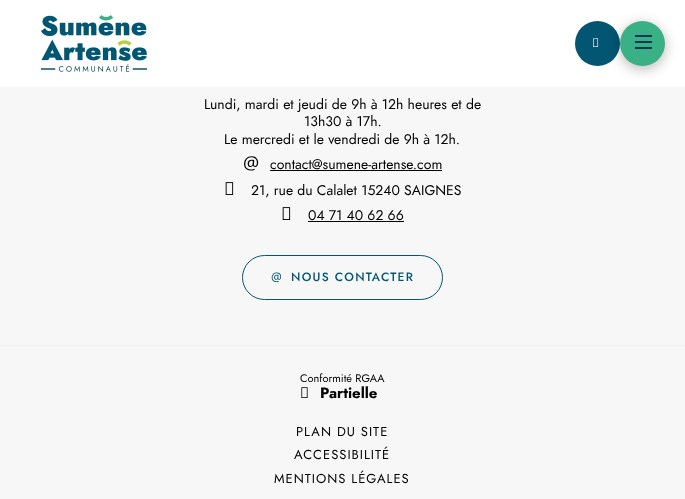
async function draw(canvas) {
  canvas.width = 685
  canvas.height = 499
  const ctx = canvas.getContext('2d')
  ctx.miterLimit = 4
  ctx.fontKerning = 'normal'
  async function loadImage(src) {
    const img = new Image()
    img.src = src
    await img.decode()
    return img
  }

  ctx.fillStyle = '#f7f7f7'
  ctx.fillRect(0, 0, 685, 499)
  ctx.fillStyle = '#fff'
  ctx.fillRect(0, 0, 685, 87)
  ctx.drawImage(await loadImage('image0.png'), 41, 15, 106, 57)
  ctx.fillStyle = '#035671'
  ctx.beginPath()
  ctx.arc(597.5, 43.5, 22.5, 0, 2 * Math.PI)
  ctx.fill()
  ctx.drawImage(await loadImage('image1.png'), 593, 38, 6, 9)
  ctx.fillStyle = '#00000047'
  ctx.filter = 'blur(6.5px)'
  ctx.beginPath()
  ctx.roundRect(620, 24, 45, 45, 22.5)
  ctx.fill()
  ctx.filter = 'none'
  ctx.fillStyle = '#3ab086'
  ctx.beginPath()
  ctx.arc(642.5, 43.5, 22.5, 0, 2 * Math.PI)
  ctx.fill()
  ctx.fillStyle = '#013953'
  ctx.fillRect(635, 35, 17, 2)
  ctx.fillRect(635, 41, 17, 2)
  ctx.fillRect(635, 47, 17, 2)
  ctx.font = '14px Jost'
  ctx.fillStyle = '#000'
  ctx.fillText('Lundi, mardi et jeudi de 9h à 12h heures et de', 204, 109)
  ctx.fillText('13h30 à 17h.', 304, 126)
  ctx.fillText('Le mercredi et le vendredi de 9h à 12h.', 224, 144)
  ctx.font = '18px Noto Sans'
  ctx.fillText('@', 243, 169)
  ctx.font = '14px Jost'
  ctx.fillText('contact@sumene-artense.com', 270, 169)
  ctx.fillRect(270, 170, 172, 1)
  ctx.drawImage(await loadImage('image2.png'), 225, 182, 9, 13)
  ctx.fillText('21, rue du Calalet 15240 SAIGNES', 251, 195)
  ctx.drawImage(await loadImage('image2.png'), 282, 207, 9, 13)
  ctx.fillText('04 71 40 62 66', 308, 220)
  ctx.fillRect(308, 221, 96, 1)
  ctx.beginPath()
  ctx.roundRect(242.5, 255.5, 200, 44, 22)
  ctx.strokeStyle = '#035671'
  ctx.stroke()
  ctx.font = '12px Noto Sans'
  ctx.fillStyle = '#035671'
  ctx.fillText('@', 271, 281)
  ctx.letterSpacing = '1.25px'
  ctx.font = '500 12px Jost'
  ctx.fillText('NOUS CONTACTER', 291, 281)
  ctx.fillStyle = '#efefef'
  ctx.fillRect(0, 345, 685, 1)
  ctx.letterSpacing = '0px'
  ctx.font = '11px Jost'
  ctx.fillStyle = '#000'
  ctx.fillText('Conformité RGAA', 300, 382)
  ctx.drawImage(await loadImage('image3.png'), 301, 387, 7, 11)
  ctx.font = 'bold 15px Jost'
  ctx.fillText('Partielle', 320, 398)
  ctx.letterSpacing = '1px'
  ctx.font = '13px Jost'
  ctx.fillText('PLAN DU SITE', 296, 436)
  ctx.fillText('ACCESSIBILITÉ', 294, 459)
  ctx.fillText('MENTIONS LÉGALES', 274, 483)
}

draw(document.querySelector('canvas'))
